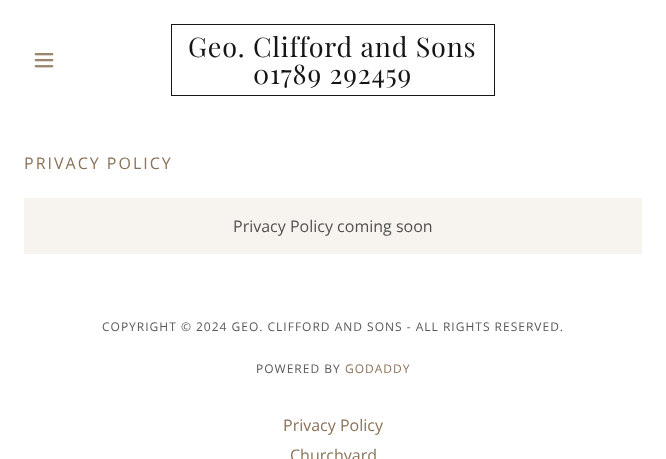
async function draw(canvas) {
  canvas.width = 666
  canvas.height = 459
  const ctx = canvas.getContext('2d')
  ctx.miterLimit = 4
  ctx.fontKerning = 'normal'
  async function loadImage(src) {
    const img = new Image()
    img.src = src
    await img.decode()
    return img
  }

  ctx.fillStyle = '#fff'
  ctx.fillRect(0, 0, 666, 459)
  ctx.drawImage(await loadImage('image0.png'), 34, 53, 20, 15)
  ctx.strokeStyle = '#151515'
  ctx.strokeRect(171.5, 24.5, 323, 71)
  ctx.letterSpacing = '0.8px'
  ctx.font = '27px Playfair Display'
  ctx.fillStyle = '#151515'
  ctx.fillText('Geo. Clifford and Sons', 188, 57)
  ctx.fillText('01789 292459', 253, 84)
  ctx.letterSpacing = '2px'
  ctx.font = '16px Open Sans'
  ctx.fillStyle = '#8a7258'
  ctx.fillText('PRIVACY POLICY', 24, 169)
  ctx.fillStyle = '#f7f3ee'
  ctx.fillRect(24, 198, 618, 56)
  ctx.letterSpacing = '0px'
  ctx.fillStyle = '#525252'
  ctx.fillText('Privacy Policy coming soon', 233, 232)
  ctx.letterSpacing = '1px'
  ctx.font = '12px Open Sans'
  ctx.fillStyle = '#595959'
  ctx.fillText('COPYRIGHT © 2024 GEO. CLIFFORD AND SONS - ALL RIGHTS RESERVED.', 102, 331)
  ctx.fillText('POWERED BY', 256, 373)
  ctx.fillStyle = '#8a7258'
  ctx.fillText('GODADDY', 345, 373)
  ctx.letterSpacing = '0px'
  ctx.font = '16px Open Sans'
  ctx.fillText('Privacy Policy', 283, 431)
  ctx.fillText('Churchyard', 290, 461)
}

draw(document.querySelector('canvas'))
